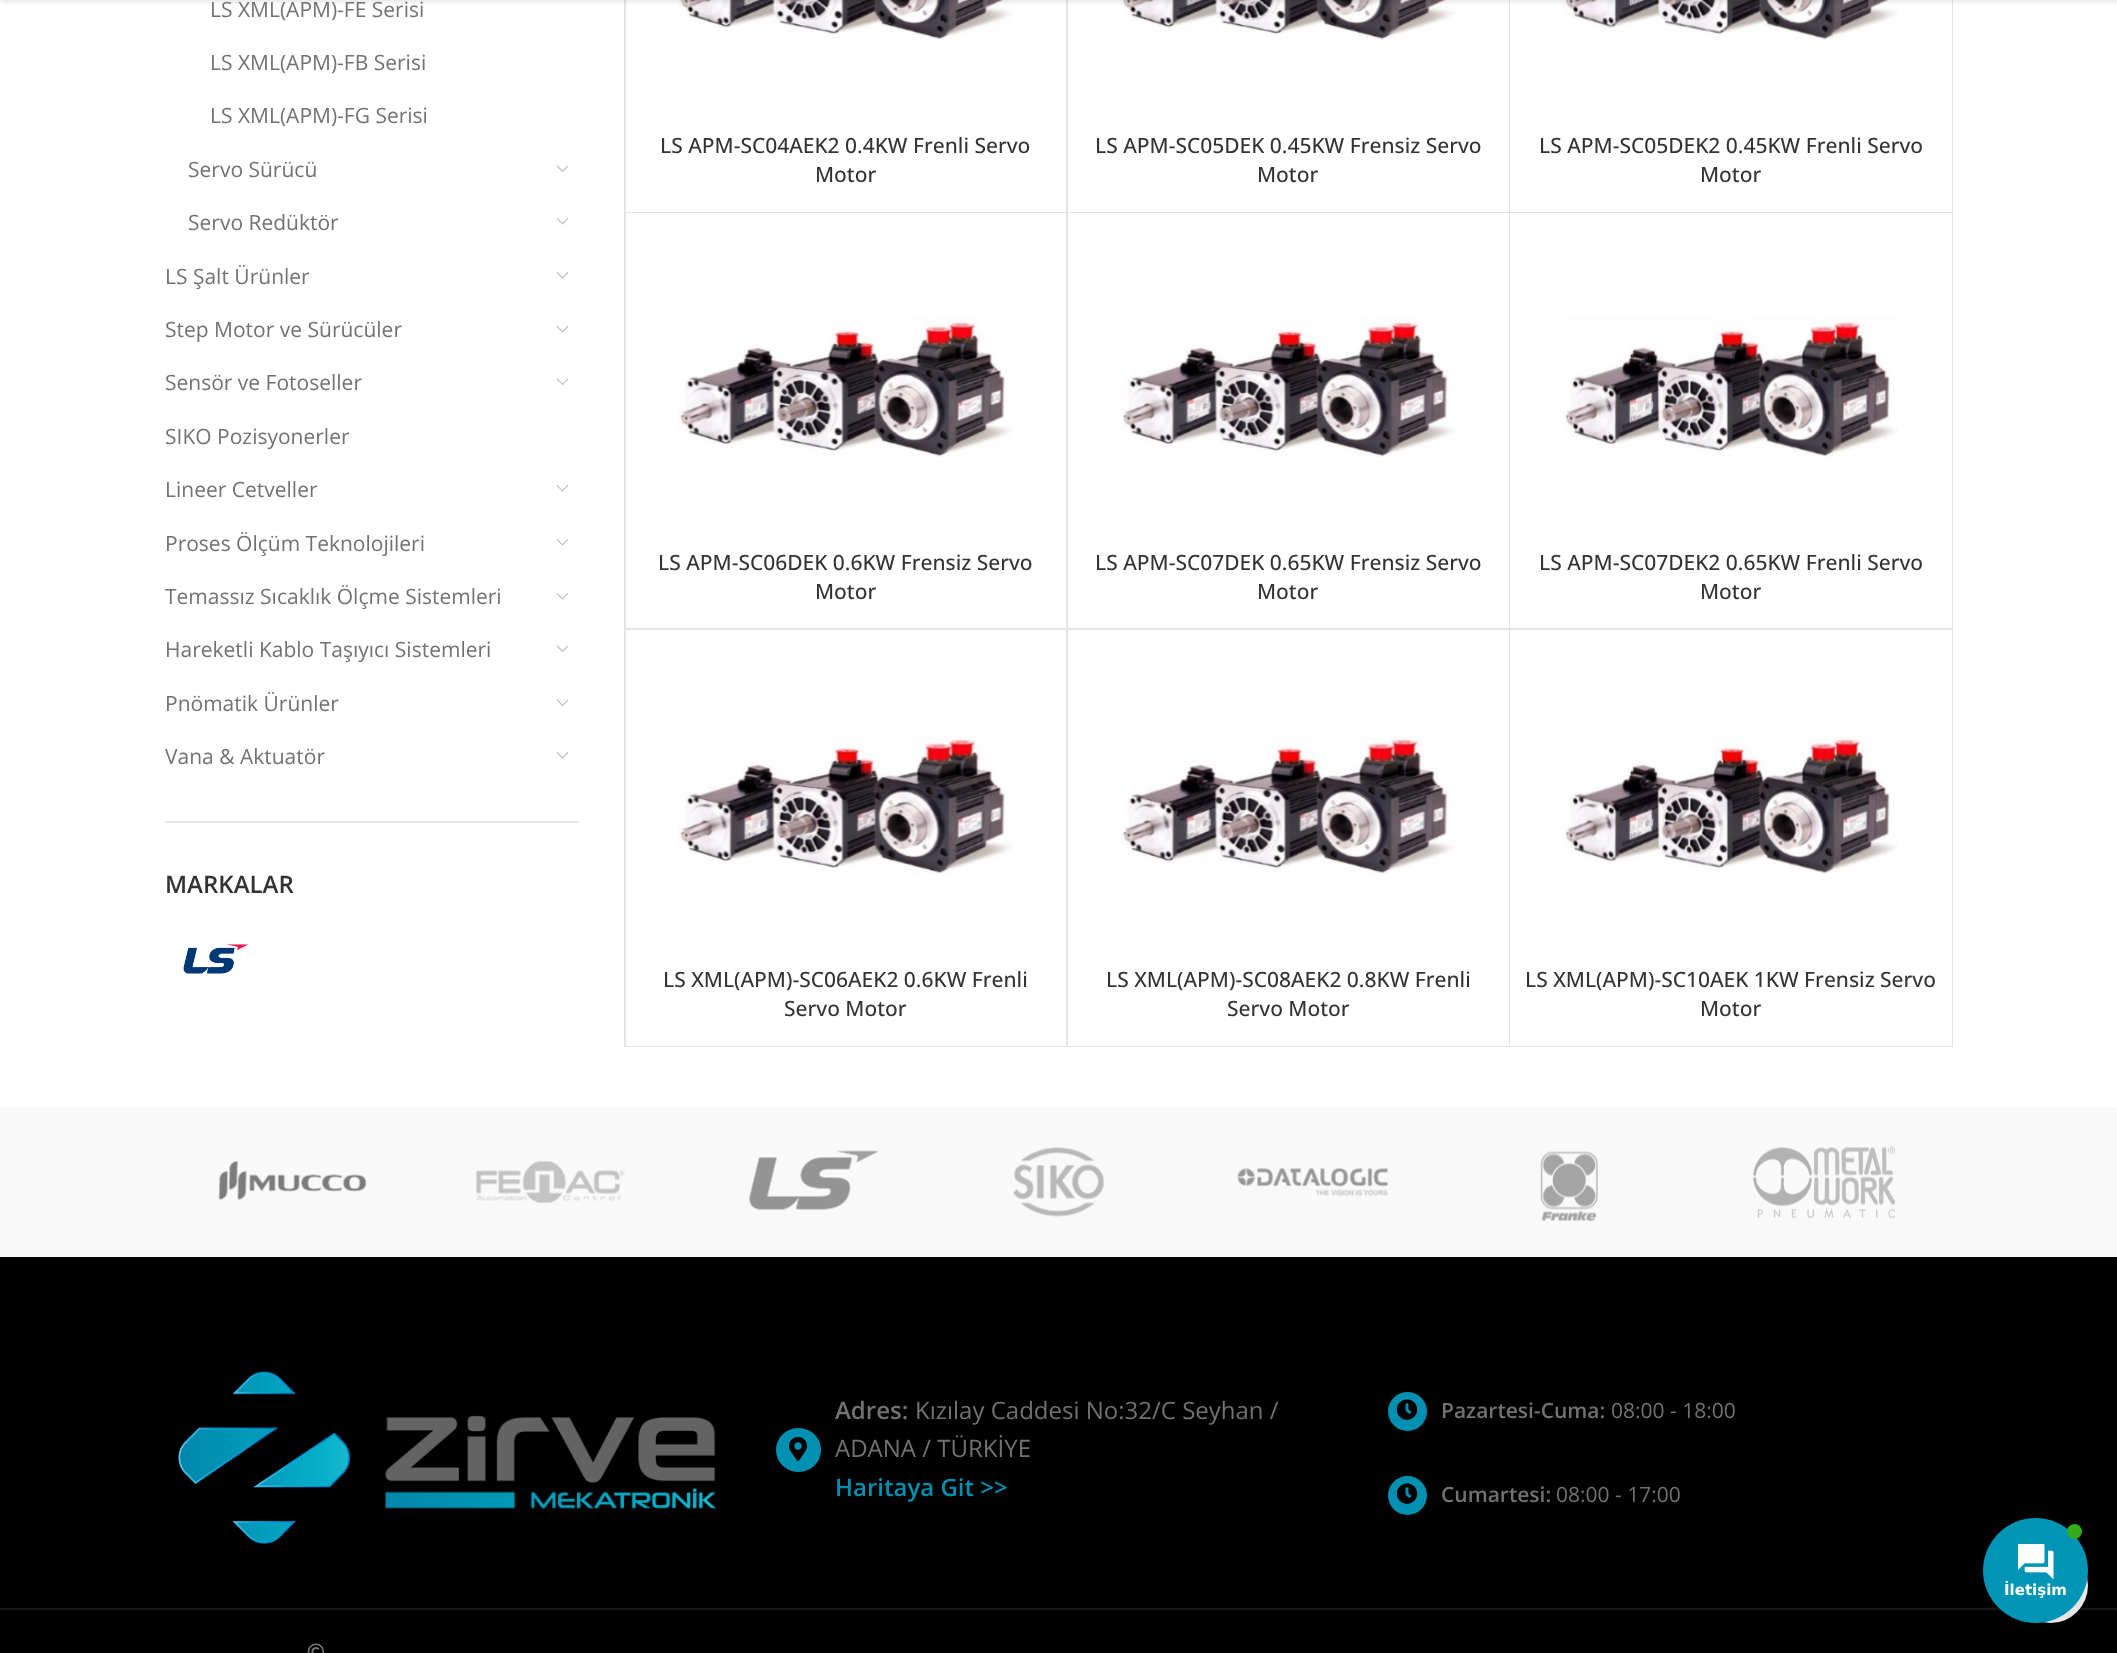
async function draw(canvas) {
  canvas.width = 2117
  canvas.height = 1653
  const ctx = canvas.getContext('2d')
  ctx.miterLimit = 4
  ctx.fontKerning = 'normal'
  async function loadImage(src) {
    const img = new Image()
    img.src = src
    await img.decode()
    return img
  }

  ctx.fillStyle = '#fff'
  ctx.fillRect(0, 0, 2117, 1653)
  ctx.fillStyle = '#e4e4e4'
  ctx.fillRect(624, 0, 2, 1047)
  ctx.beginPath()
  ctx.moveTo(1068, -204)
  ctx.lineTo(1068, 213)
  ctx.lineTo(1066, 212)
  ctx.lineTo(1066, -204)
  ctx.closePath()
  ctx.fill()
  ctx.drawImage(await loadImage('image3.png'), 679, 0, 334, 40)
  ctx.beginPath()
  ctx.moveTo(1510, -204)
  ctx.lineTo(1510, 213)
  ctx.lineTo(1509, 212)
  ctx.lineTo(1509, -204)
  ctx.closePath()
  ctx.fill()
  ctx.drawImage(await loadImage('image4.png'), 1121, 0, 335, 40)
  ctx.beginPath()
  ctx.moveTo(1953, -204)
  ctx.lineTo(1953, 213)
  ctx.lineTo(1952, 212)
  ctx.lineTo(1952, -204)
  ctx.closePath()
  ctx.fill()
  ctx.drawImage(await loadImage('image5.png'), 1564, 0, 334, 40)
  ctx.fillStyle = '#0000001a'
  ctx.filter = 'blur(2px)'
  ctx.beginPath()
  ctx.rect(0, -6, 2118, 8)
  ctx.fill()
  ctx.filter = 'none'
  ctx.fillStyle = '#e4e4e4'
  ctx.fillRect(165, 821, 414, 2)
  ctx.font = '21px Open Sans'
  ctx.fillStyle = '#727272'
  ctx.fillText('LS XML(APM)-FE Serisi', 210, 17)
  ctx.fillText('LS XML(APM)-FB Serisi', 210, 70)
  ctx.fillText('LS XML(APM)-FG Serisi', 210, 123)
  ctx.fillText('Servo Sürücü', 188, 177)
  ctx.drawImage(await loadImage('image0.png'), 556, 165, 13, 7)
  ctx.fillText('Servo Redüktör', 188, 230)
  ctx.drawImage(await loadImage('image1.png'), 556, 218, 13, 7)
  ctx.fillText('LS Şalt Ürünler', 165, 284)
  ctx.drawImage(await loadImage('image1.png'), 556, 272, 13, 7)
  ctx.fillText('Step Motor ve Sürücüler', 165, 337)
  ctx.drawImage(await loadImage('image1.png'), 556, 326, 13, 7)
  ctx.fillText('Sensör ve Fotoseller', 165, 390)
  ctx.drawImage(await loadImage('image0.png'), 556, 378, 13, 7)
  ctx.fillText('SIKO Pozisyonerler', 165, 444)
  ctx.fillText('Lineer Cetveller', 165, 497)
  ctx.drawImage(await loadImage('image1.png'), 556, 485, 13, 7)
  ctx.fillText('Proses Ölçüm Teknolojileri', 165, 551)
  ctx.drawImage(await loadImage('image1.png'), 556, 539, 13, 7)
  ctx.fillText('Temassız Sıcaklık Ölçme Sistemleri', 165, 604)
  ctx.drawImage(await loadImage('image1.png'), 556, 593, 13, 7)
  ctx.fillText('Hareketli Kablo Taşıyıcı Sistemleri', 165, 657)
  ctx.drawImage(await loadImage('image0.png'), 556, 645, 13, 7)
  ctx.fillText('Pnömatik Ürünler', 165, 711)
  ctx.drawImage(await loadImage('image0.png'), 556, 699, 13, 7)
  ctx.fillText('Vana & Aktuatör', 165, 764)
  ctx.drawImage(await loadImage('image1.png'), 556, 752, 13, 7)
  ctx.font = '600 24px Open Sans'
  ctx.fillStyle = '#333'
  ctx.fillText('MARKALAR', 165, 893)
  ctx.drawImage(await loadImage('image2.png'), 183, 944, 65, 30)
  ctx.fillStyle = '#77777733'
  ctx.beginPath()
  ctx.moveTo(1068, 213)
  ctx.lineTo(626, 213)
  ctx.lineTo(626, 212)
  ctx.lineTo(1066, 212)
  ctx.closePath()
  ctx.fill()
  ctx.font = '500 21px Open Sans'
  ctx.fillStyle = '#333'
  ctx.fillText('LS APM-SC04AEK2 0.4KW Frenli Servo', 660, 153)
  ctx.fillText('Motor', 815, 182)
  ctx.fillStyle = '#77777733'
  ctx.beginPath()
  ctx.moveTo(1510, 213)
  ctx.lineTo(1068, 213)
  ctx.lineTo(1068, 212)
  ctx.lineTo(1509, 212)
  ctx.closePath()
  ctx.fill()
  ctx.fillStyle = '#333'
  ctx.fillText('LS APM-SC05DEK 0.45KW Frensiz Servo', 1095, 153)
  ctx.fillText('Motor', 1257, 182)
  ctx.fillStyle = '#77777733'
  ctx.beginPath()
  ctx.moveTo(1953, 213)
  ctx.lineTo(1510, 213)
  ctx.lineTo(1510, 212)
  ctx.lineTo(1952, 212)
  ctx.closePath()
  ctx.fill()
  ctx.fillStyle = '#333'
  ctx.fillText('LS APM-SC05DEK2 0.45KW Frenli Servo', 1539, 153)
  ctx.fillText('Motor', 1700, 182)
  ctx.fillStyle = '#e4e4e4'
  ctx.beginPath()
  ctx.moveTo(1068, 213)
  ctx.lineTo(1068, 630)
  ctx.lineTo(1066, 628)
  ctx.lineTo(1066, 213)
  ctx.closePath()
  ctx.fill()
  ctx.fillStyle = '#77777733'
  ctx.beginPath()
  ctx.moveTo(1068, 630)
  ctx.lineTo(626, 630)
  ctx.lineTo(626, 628)
  ctx.lineTo(1066, 628)
  ctx.closePath()
  ctx.fill()
  ctx.drawImage(await loadImage('image6.png'), 677, 318, 336, 139)
  ctx.fillStyle = '#333'
  ctx.fillText('LS APM-SC06DEK 0.6KW Frensiz Servo', 658, 570)
  ctx.fillText('Motor', 815, 599)
  ctx.fillStyle = '#e4e4e4'
  ctx.beginPath()
  ctx.moveTo(1510, 213)
  ctx.lineTo(1510, 630)
  ctx.lineTo(1509, 628)
  ctx.lineTo(1509, 213)
  ctx.closePath()
  ctx.fill()
  ctx.fillStyle = '#77777733'
  ctx.beginPath()
  ctx.moveTo(1510, 630)
  ctx.lineTo(1068, 630)
  ctx.lineTo(1068, 628)
  ctx.lineTo(1509, 628)
  ctx.closePath()
  ctx.fill()
  ctx.drawImage(await loadImage('image7.png'), 1121, 318, 335, 139)
  ctx.fillStyle = '#333'
  ctx.fillText('LS APM-SC07DEK 0.65KW Frensiz Servo', 1095, 570)
  ctx.fillText('Motor', 1257, 599)
  ctx.fillStyle = '#e4e4e4'
  ctx.beginPath()
  ctx.moveTo(1953, 213)
  ctx.lineTo(1953, 630)
  ctx.lineTo(1952, 628)
  ctx.lineTo(1952, 213)
  ctx.closePath()
  ctx.fill()
  ctx.fillStyle = '#77777733'
  ctx.beginPath()
  ctx.moveTo(1953, 630)
  ctx.lineTo(1510, 630)
  ctx.lineTo(1510, 628)
  ctx.lineTo(1952, 628)
  ctx.closePath()
  ctx.fill()
  ctx.drawImage(await loadImage('image8.png'), 1564, 318, 334, 139)
  ctx.fillStyle = '#333'
  ctx.fillText('LS APM-SC07DEK2 0.65KW Frenli Servo', 1539, 570)
  ctx.fillText('Motor', 1700, 599)
  ctx.fillStyle = '#e4e4e4'
  ctx.beginPath()
  ctx.moveTo(1068, 630)
  ctx.lineTo(1068, 1047)
  ctx.lineTo(1066, 1046)
  ctx.lineTo(1066, 630)
  ctx.closePath()
  ctx.fill()
  ctx.fillStyle = '#77777733'
  ctx.beginPath()
  ctx.moveTo(1068, 1047)
  ctx.lineTo(626, 1047)
  ctx.lineTo(626, 1046)
  ctx.lineTo(1066, 1046)
  ctx.closePath()
  ctx.fill()
  ctx.drawImage(await loadImage('image6.png'), 677, 735, 336, 139)
  ctx.fillStyle = '#333'
  ctx.fillText('LS XML(APM)-SC06AEK2 0.6KW Frenli', 663, 987)
  ctx.fillText('Servo Motor', 784, 1016)
  ctx.fillStyle = '#e4e4e4'
  ctx.beginPath()
  ctx.moveTo(1510, 630)
  ctx.lineTo(1510, 1047)
  ctx.lineTo(1509, 1046)
  ctx.lineTo(1509, 630)
  ctx.closePath()
  ctx.fill()
  ctx.fillStyle = '#77777733'
  ctx.beginPath()
  ctx.moveTo(1510, 1047)
  ctx.lineTo(1068, 1047)
  ctx.lineTo(1068, 1046)
  ctx.lineTo(1509, 1046)
  ctx.closePath()
  ctx.fill()
  ctx.drawImage(await loadImage('image7.png'), 1121, 735, 335, 139)
  ctx.fillStyle = '#333'
  ctx.fillText('LS XML(APM)-SC08AEK2 0.8KW Frenli', 1106, 987)
  ctx.fillText('Servo Motor', 1227, 1016)
  ctx.fillStyle = '#e4e4e4'
  ctx.beginPath()
  ctx.moveTo(1953, 630)
  ctx.lineTo(1953, 1047)
  ctx.lineTo(1952, 1046)
  ctx.lineTo(1952, 630)
  ctx.closePath()
  ctx.fill()
  ctx.fillStyle = '#77777733'
  ctx.beginPath()
  ctx.moveTo(1953, 1047)
  ctx.lineTo(1510, 1047)
  ctx.lineTo(1510, 1046)
  ctx.lineTo(1952, 1046)
  ctx.closePath()
  ctx.fill()
  ctx.drawImage(await loadImage('image8.png'), 1564, 735, 334, 139)
  ctx.fillStyle = '#333'
  ctx.fillText('LS XML(APM)-SC10AEK 1KW Frensiz Servo', 1525, 987)
  ctx.fillText('Motor', 1700, 1016)
  ctx.fillStyle = '#f9f9f9'
  ctx.fillRect(0, 1107, 2117, 150)
  ctx.drawImage(await loadImage('image9.png'), 218, 1161, 149, 39)
  ctx.drawImage(await loadImage('image10.png'), 476, 1161, 149, 42)
  ctx.drawImage(await loadImage('image11.png'), 749, 1150, 130, 60)
  ctx.drawImage(await loadImage('image12.png'), 1013, 1147, 91, 70)
  ctx.drawImage(await loadImage('image13.png'), 1237, 1168, 151, 28)
  ctx.drawImage(await loadImage('image14.png'), 1540, 1151, 58, 71)
  ctx.drawImage(await loadImage('image15.png'), 1753, 1146, 142, 73)
  ctx.fillStyle = '#000'
  ctx.fillRect(0, 1257, 2117, 396)
  ctx.drawImage(await loadImage('image16.png'), 178, 1371, 538, 173)
  ctx.fillStyle = '#0090b2'
  ctx.beginPath()
  ctx.roundRect(776, 1428, 45, 44, 22)
  ctx.fill()
  ctx.drawImage(await loadImage('image17.png'), 789, 1437, 18, 24)
  ctx.font = '600 24px Open Sans'
  ctx.fillStyle = '#727272'
  ctx.fillText('Adres:', 835, 1419)
  ctx.font = '24px Open Sans'
  ctx.fillText('Kızılay Caddesi No:32/C Seyhan /', 915, 1419)
  ctx.fillText('ADANA / TÜRKİYE', 835, 1457)
  ctx.font = '600 24px Open Sans'
  ctx.fillStyle = '#0090b2'
  ctx.fillText('Haritaya Git >>', 835, 1496)
  ctx.beginPath()
  ctx.arc(1407.5, 1411.5, 19.5, 0, 2 * Math.PI)
  ctx.fill()
  ctx.drawImage(await loadImage('image18.png'), 1396, 1399, 22, 21)
  ctx.font = '600 21px Open Sans'
  ctx.fillStyle = '#727272'
  ctx.fillText('Pazartesi-Cuma:', 1441, 1418)
  ctx.font = '21px Open Sans'
  ctx.fillText('08:00 - 18:00', 1611, 1418)
  ctx.fillStyle = '#0090b2'
  ctx.beginPath()
  ctx.arc(1407.5, 1495.5, 19.5, 0, 2 * Math.PI)
  ctx.fill()
  ctx.drawImage(await loadImage('image18.png'), 1396, 1483, 22, 21)
  ctx.font = '600 21px Open Sans'
  ctx.fillStyle = '#727272'
  ctx.fillText('Cumartesi:', 1441, 1502)
  ctx.font = '21px Open Sans'
  ctx.fillText('08:00 - 17:00', 1556, 1502)
  ctx.fillStyle = '#181818'
  ctx.fillRect(0, 1608, 2117, 2)
  ctx.drawImage(await loadImage('image19.png'), 307, 1643, 17, 10)
  ctx.fillStyle = '#ffffffe6'
  ctx.beginPath()
  ctx.arc(2050.5, 1585.5, 37.5, 0, 2 * Math.PI)
  ctx.fill()
  ctx.fillStyle = '#0095b6'
  ctx.beginPath()
  ctx.arc(2035.5, 1570.5, 52.5, 0, 2 * Math.PI)
  ctx.fill()
  ctx.fillStyle = '#35ac19'
  ctx.beginPath()
  ctx.arc(2074.5, 1531.5, 7.5, 0, 2 * Math.PI)
  ctx.fill()
  ctx.drawImage(await loadImage('image20.png'), 2018, 1544, 36, 36)
  ctx.font = 'bold 15px DejaVu Sans'
  ctx.fillStyle = '#fff'
  ctx.fillText('İletişim', 2004, 1595)
}

draw(document.querySelector('canvas'))
